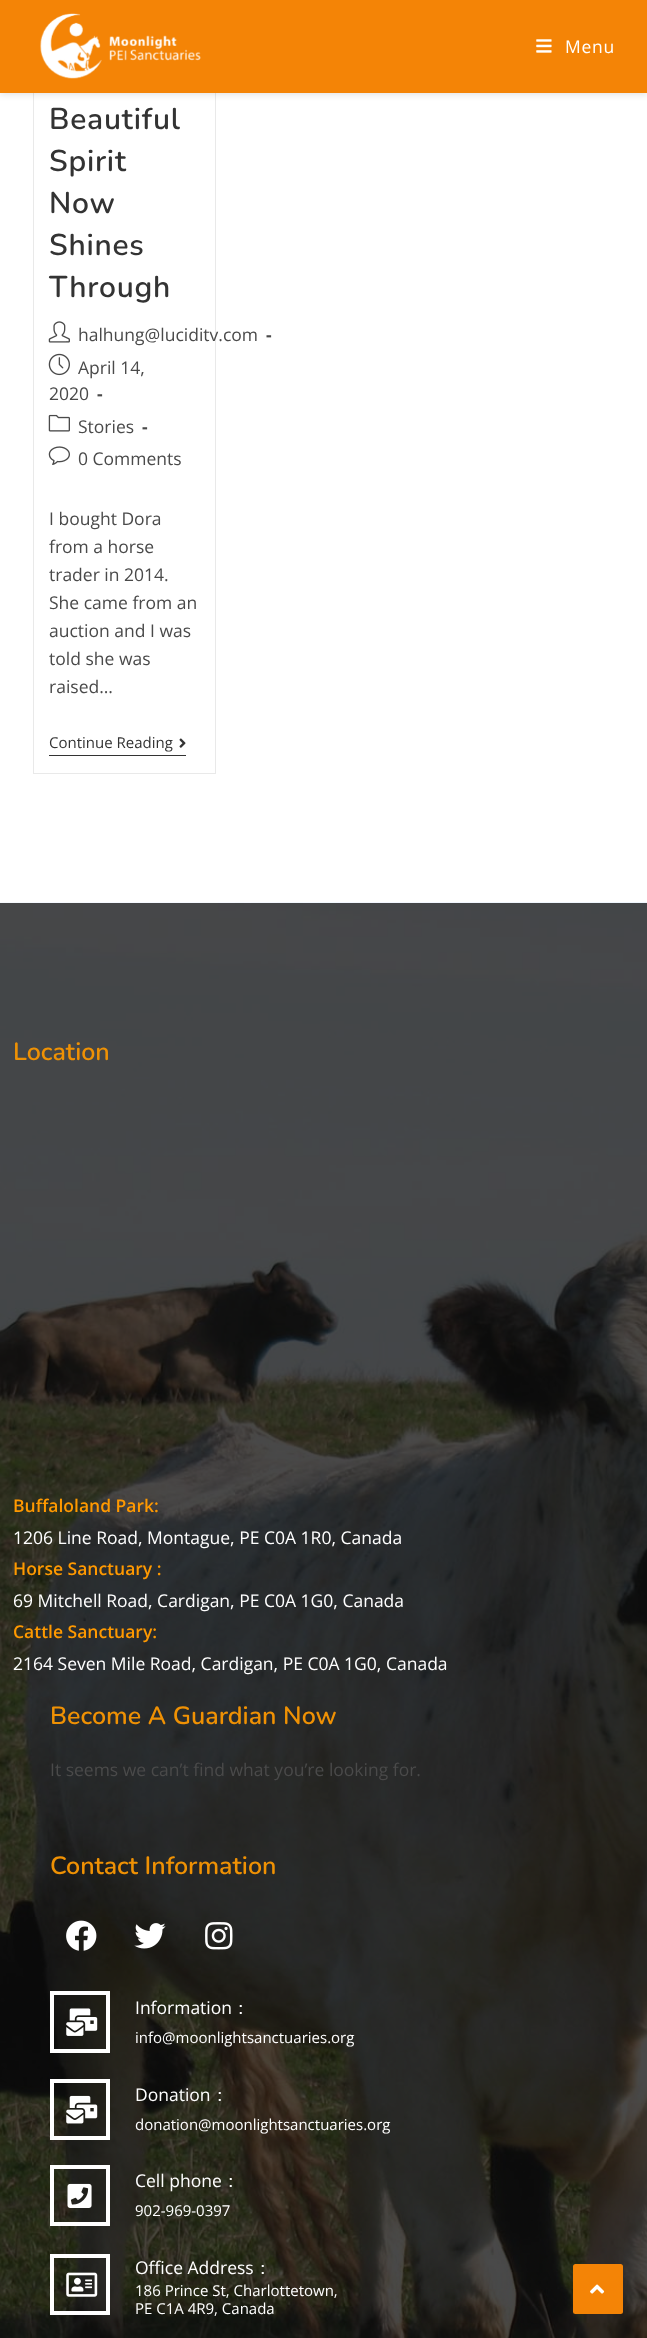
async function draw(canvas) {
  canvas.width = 647
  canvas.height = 2338
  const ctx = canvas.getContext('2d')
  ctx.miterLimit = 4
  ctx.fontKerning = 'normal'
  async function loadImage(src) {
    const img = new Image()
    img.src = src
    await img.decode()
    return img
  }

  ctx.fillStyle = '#fff'
  ctx.fillRect(0, 0, 647, 2338)
  ctx.strokeStyle = '#e9e9e9'
  ctx.strokeRect(33.5, -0.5, 182, 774)
  ctx.fillStyle = '#0000001a'
  ctx.filter = 'blur(3px)'
  ctx.beginPath()
  ctx.rect(0, 3, 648, 92)
  ctx.fill()
  ctx.filter = 'none'
  ctx.fillStyle = '#f48406'
  ctx.fillRect(0, 0, 647, 93)
  ctx.drawImage(await loadImage('image0.png'), 40, 13, 161, 66)
  ctx.drawImage(await loadImage('image1.png'), 536, 39, 16, 14)
  ctx.letterSpacing = '0.75px'
  ctx.font = '17.5px Open Sans'
  ctx.fillStyle = '#fff'
  ctx.fillText('Menu', 565, 53)
  ctx.font = '600 30px Nunito'
  ctx.fillStyle = '#333'
  ctx.fillText('Beautiful', 49, 129)
  ctx.fillText('Spirit', 49, 171)
  ctx.fillText('Now', 49, 213)
  ctx.fillText('Shines', 49, 255)
  ctx.fillText('Through', 49, 297)
  ctx.drawImage(await loadImage('image2.png'), 48, 321, 22, 22)
  ctx.letterSpacing = '0px'
  ctx.font = '17.5px Open Sans'
  ctx.fillStyle = '#4a4a4a'
  ctx.fillText('halhung@luciditv.com', 78, 341)
  ctx.font = 'bold 17.5px Open Sans'
  ctx.fillText('-', 266, 341)
  ctx.drawImage(await loadImage('image3.png'), 48, 353, 22, 23)
  ctx.font = '17.5px Open Sans'
  ctx.fillText('April 14,', 78, 374)
  ctx.fillText('2020', 49, 400)
  ctx.font = 'bold 17.5px Open Sans'
  ctx.fillText('-', 97, 400)
  ctx.drawImage(await loadImage('image4.png'), 48, 414, 22, 18)
  ctx.font = '17.5px Open Sans'
  ctx.fillText('Stories', 78, 433)
  ctx.font = 'bold 17.5px Open Sans'
  ctx.fillText('-', 142, 433)
  ctx.drawImage(await loadImage('image5.png'), 48, 446, 22, 19)
  ctx.font = '17.5px Open Sans'
  ctx.fillText('0 Comments', 78, 465)
  ctx.fillText('I bought Dora', 49, 525)
  ctx.fillText('from a horse', 49, 553)
  ctx.fillText('trader in 2014.', 49, 581)
  ctx.fillText('She came from an', 49, 609)
  ctx.fillText('auction and I was', 49, 637)
  ctx.fillText('told she was', 49, 665)
  ctx.fillText('raised…', 49, 693)
  ctx.fillStyle = '#333'
  ctx.fillRect(49, 755, 137, 1)
  ctx.font = '15px Open Sans'
  ctx.fillText('Continue Reading', 49, 748)
  ctx.drawImage(await loadImage('image6.png'), 179, 738, 7, 10)
  ctx.drawImage(await loadImage('image7.png'), 0, 902, 647, 1436)
  ctx.font = '600 25px Nunito'
  ctx.fillStyle = '#ef9104'
  ctx.fillText('Location', 13, 1060)
  ctx.font = '600 17.5px Open Sans'
  ctx.fillStyle = '#f90'
  ctx.fillText('Buffaloland Park:', 13, 1512)
  ctx.font = '17.5px Open Sans'
  ctx.fillStyle = '#fff'
  ctx.fillText('1206 Line Road, Montague, PE C0A 1R0, Canada', 13, 1544)
  ctx.font = '600 17.5px Open Sans'
  ctx.fillStyle = '#f90'
  ctx.fillText('Horse Sanctuary :', 13, 1575)
  ctx.font = '17.5px Open Sans'
  ctx.fillStyle = '#fff'
  ctx.fillText('69 Mitchell Road, Cardigan, PE C0A 1G0, Canada', 13, 1607)
  ctx.font = '600 17.5px Open Sans'
  ctx.fillStyle = '#f90'
  ctx.fillText('Cattle Sanctuary:', 13, 1638)
  ctx.font = '17.5px Open Sans'
  ctx.fillStyle = '#fff'
  ctx.fillText('2164 Seven Mile Road, Cardigan, PE C0A 1G0, Canada', 13, 1670)
  ctx.font = '600 25px Nunito'
  ctx.fillStyle = '#ef9104'
  ctx.fillText('Become A Guardian Now', 50, 1724)
  ctx.font = '17.5px Open Sans'
  ctx.fillStyle = '#4a4a4a'
  ctx.fillText('It seems we can’t find what you’re looking for.', 50, 1776)
  ctx.font = '600 25px Nunito'
  ctx.fillStyle = '#ef9104'
  ctx.fillText('Contact Information', 50, 1874)
  ctx.drawImage(await loadImage('image8.png'), 66, 1920, 31, 31)
  ctx.drawImage(await loadImage('image9.png'), 134, 1923, 32, 26)
  ctx.drawImage(await loadImage('image10.png'), 205, 1922, 28, 28)
  ctx.strokeStyle = '#fff'
  ctx.lineWidth = 4
  ctx.strokeRect(52, 1993, 56, 58)
  ctx.drawImage(await loadImage('image11.png'), 66, 2008, 32, 28)
  ctx.font = '17.5px Open Sans'
  ctx.fillStyle = '#fff'
  ctx.fillText('Information', 135, 2014)
  ctx.font = '500 17.5px WenQuanYi Zen Hei'
  ctx.fillText('：', 232, 2014)
  ctx.font = '15px Open Sans'
  ctx.fillText('info@moonlightsanctuaries.org', 135, 2043)
  ctx.strokeRect(52, 2081, 56, 57)
  ctx.drawImage(await loadImage('image12.png'), 66, 2095, 32, 29)
  ctx.font = '17.5px Open Sans'
  ctx.fillText('Donation', 135, 2101)
  ctx.font = '500 17.5px WenQuanYi Zen Hei'
  ctx.fillText('：', 211, 2101)
  ctx.font = '15px Open Sans'
  ctx.fillText('donation@moonlightsanctuaries.org', 135, 2130)
  ctx.strokeRect(52, 2167, 56, 57)
  ctx.drawImage(await loadImage('image13.png'), 67, 2183, 25, 25)
  ctx.font = '17.5px Open Sans'
  ctx.fillText('Cell phone', 135, 2187)
  ctx.font = '500 17.5px WenQuanYi Zen Hei'
  ctx.fillText('：', 222, 2187)
  ctx.font = '15px Open Sans'
  ctx.fillText('902-969-0397', 135, 2216)
  ctx.strokeRect(52, 2256, 56, 57)
  ctx.drawImage(await loadImage('image14.png'), 66, 2272, 32, 25)
  ctx.font = '17.5px Open Sans'
  ctx.fillText('Office Address', 135, 2274)
  ctx.font = '500 17.5px WenQuanYi Zen Hei'
  ctx.fillText('：', 254, 2274)
  ctx.font = '15px Open Sans'
  ctx.fillText('186 Prince St, Charlottetown,', 135, 2296)
  ctx.fillText('PE C1A 4R9, Canada', 135, 2314)
  ctx.fillStyle = '#f48406'
  ctx.beginPath()
  ctx.roundRect(573, 2264, 50, 50, 2.5)
  ctx.fill()
  ctx.drawImage(await loadImage('image15.png'), 590, 2284, 15, 10)
}

draw(document.querySelector('canvas'))
